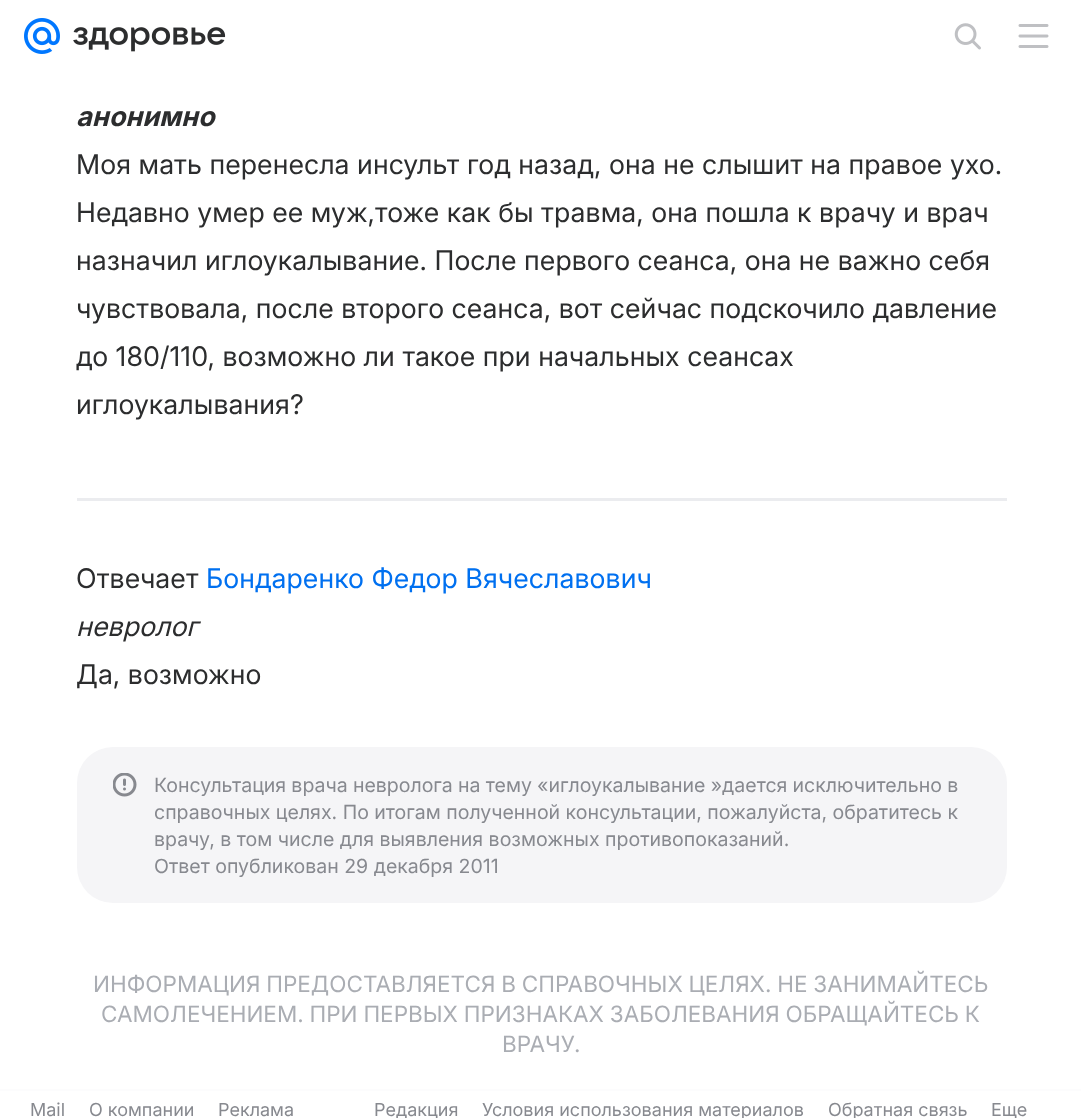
async function draw(canvas) {
  canvas.width = 1081
  canvas.height = 1118
  const ctx = canvas.getContext('2d')
  ctx.miterLimit = 4
  ctx.fontKerning = 'normal'
  async function loadImage(src) {
    const img = new Image()
    img.src = src
    await img.decode()
    return img
  }

  ctx.fillStyle = '#fff'
  ctx.fillRect(0, 0, 1081, 1118)
  ctx.drawImage(await loadImage('image0.png'), 24, 18, 36, 36)
  ctx.drawImage(await loadImage('image1.png'), 73, 27, 153, 25)
  ctx.drawImage(await loadImage('image2.png'), 954, 23, 27, 27)
  ctx.drawImage(await loadImage('image3.png'), 1018, 24, 31, 24)
  ctx.letterSpacing = '0.08px'
  ctx.font = 'italic bold 27px Inter'
  ctx.fillStyle = '#2c2d2e'
  ctx.fillText('анонимно', 76, 126)
  ctx.font = '27px Inter'
  ctx.fillText('Моя мать перенесла инсульт год назад, она не слышит на правое ухо.', 76, 174)
  ctx.fillText('Недавно умер ее муж,тоже как бы травма, она пошла к врачу и врач', 76, 222)
  ctx.fillText('назначил иглоукалывание. После первого сеанса, она не важно себя', 76, 270)
  ctx.fillText('чувствовала, после второго сеанса, вот сейчас подскочило давление', 76, 318)
  ctx.fillText('до 180/110, возможно ли такое при начальных сеансах', 76, 366)
  ctx.fillText('иглоукалывания?', 76, 414)
  ctx.fillStyle = '#ebecef'
  ctx.fillRect(77, 498, 930, 3)
  ctx.fillStyle = '#2c2d2e'
  ctx.fillText('Отвечает', 76, 588)
  ctx.fillStyle = '#0070f0'
  ctx.fillText('Бондаренко Федор Вячеславович', 206, 588)
  ctx.font = 'italic 27px Inter'
  ctx.fillStyle = '#2c2d2e'
  ctx.fillText('невролог', 76, 636)
  ctx.font = '27px Inter'
  ctx.fillText('Да, возможно', 76, 684)
  ctx.fillStyle = '#f5f5f7'
  ctx.beginPath()
  ctx.roundRect(77, 747, 930, 156, 36)
  ctx.fill()
  ctx.drawImage(await loadImage('image4.png'), 113, 773, 24, 24)
  ctx.letterSpacing = '0px'
  ctx.wordSpacing = '-0.25px'
  ctx.font = '19.5px "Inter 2"'
  ctx.fillStyle = '#87898f'
  ctx.fillText('Консультация врача невролога на тему «иглоукалывание »дается исключительно в', 154, 792)
  ctx.wordSpacing = '0px'
  ctx.fillText('справочных целях. По итогам полученной консультации, пожалуйста, обратитесь к', 154, 819)
  ctx.fillText('врачу, в том числе для выявления возможных противопоказаний.', 154, 846)
  ctx.fillText('Ответ опубликован 29 декабря 2011', 154, 873)
  ctx.wordSpacing = '-0.5px'
  ctx.font = '22.5px "Inter 2"'
  ctx.fillStyle = '#aaadb3'
  ctx.fillText('ИНФОРМАЦИЯ ПРЕДОСТАВЛЯЕТСЯ В СПРАВОЧНЫХ ЦЕЛЯХ. НЕ ЗАНИМАЙТЕСЬ', 93, 992)
  ctx.fillText('САМОЛЕЧЕНИЕМ. ПРИ ПЕРВЫХ ПРИЗНАКАХ ЗАБОЛЕВАНИЯ ОБРАЩАЙТЕСЬ К', 101, 1022)
  ctx.wordSpacing = '0px'
  ctx.fillText('ВРАЧУ.', 502, 1052)
  ctx.fillStyle = '#fcfcfd'
  ctx.fillRect(0, 1089, 1081, 2)
  ctx.font = '18px "Inter 2"'
  ctx.fillStyle = '#87898f'
  ctx.fillText('Mail', 30, 1116)
  ctx.fillText('О компании', 89, 1116)
  ctx.fillText('Реклама', 218, 1116)
  ctx.fillText('Редакция', 374, 1116)
  ctx.fillText('Условия использования материалов', 482, 1116)
  ctx.fillText('Обратная связь', 828, 1116)
  ctx.fillText('Еще', 991, 1116)
}

draw(document.querySelector('canvas'))
